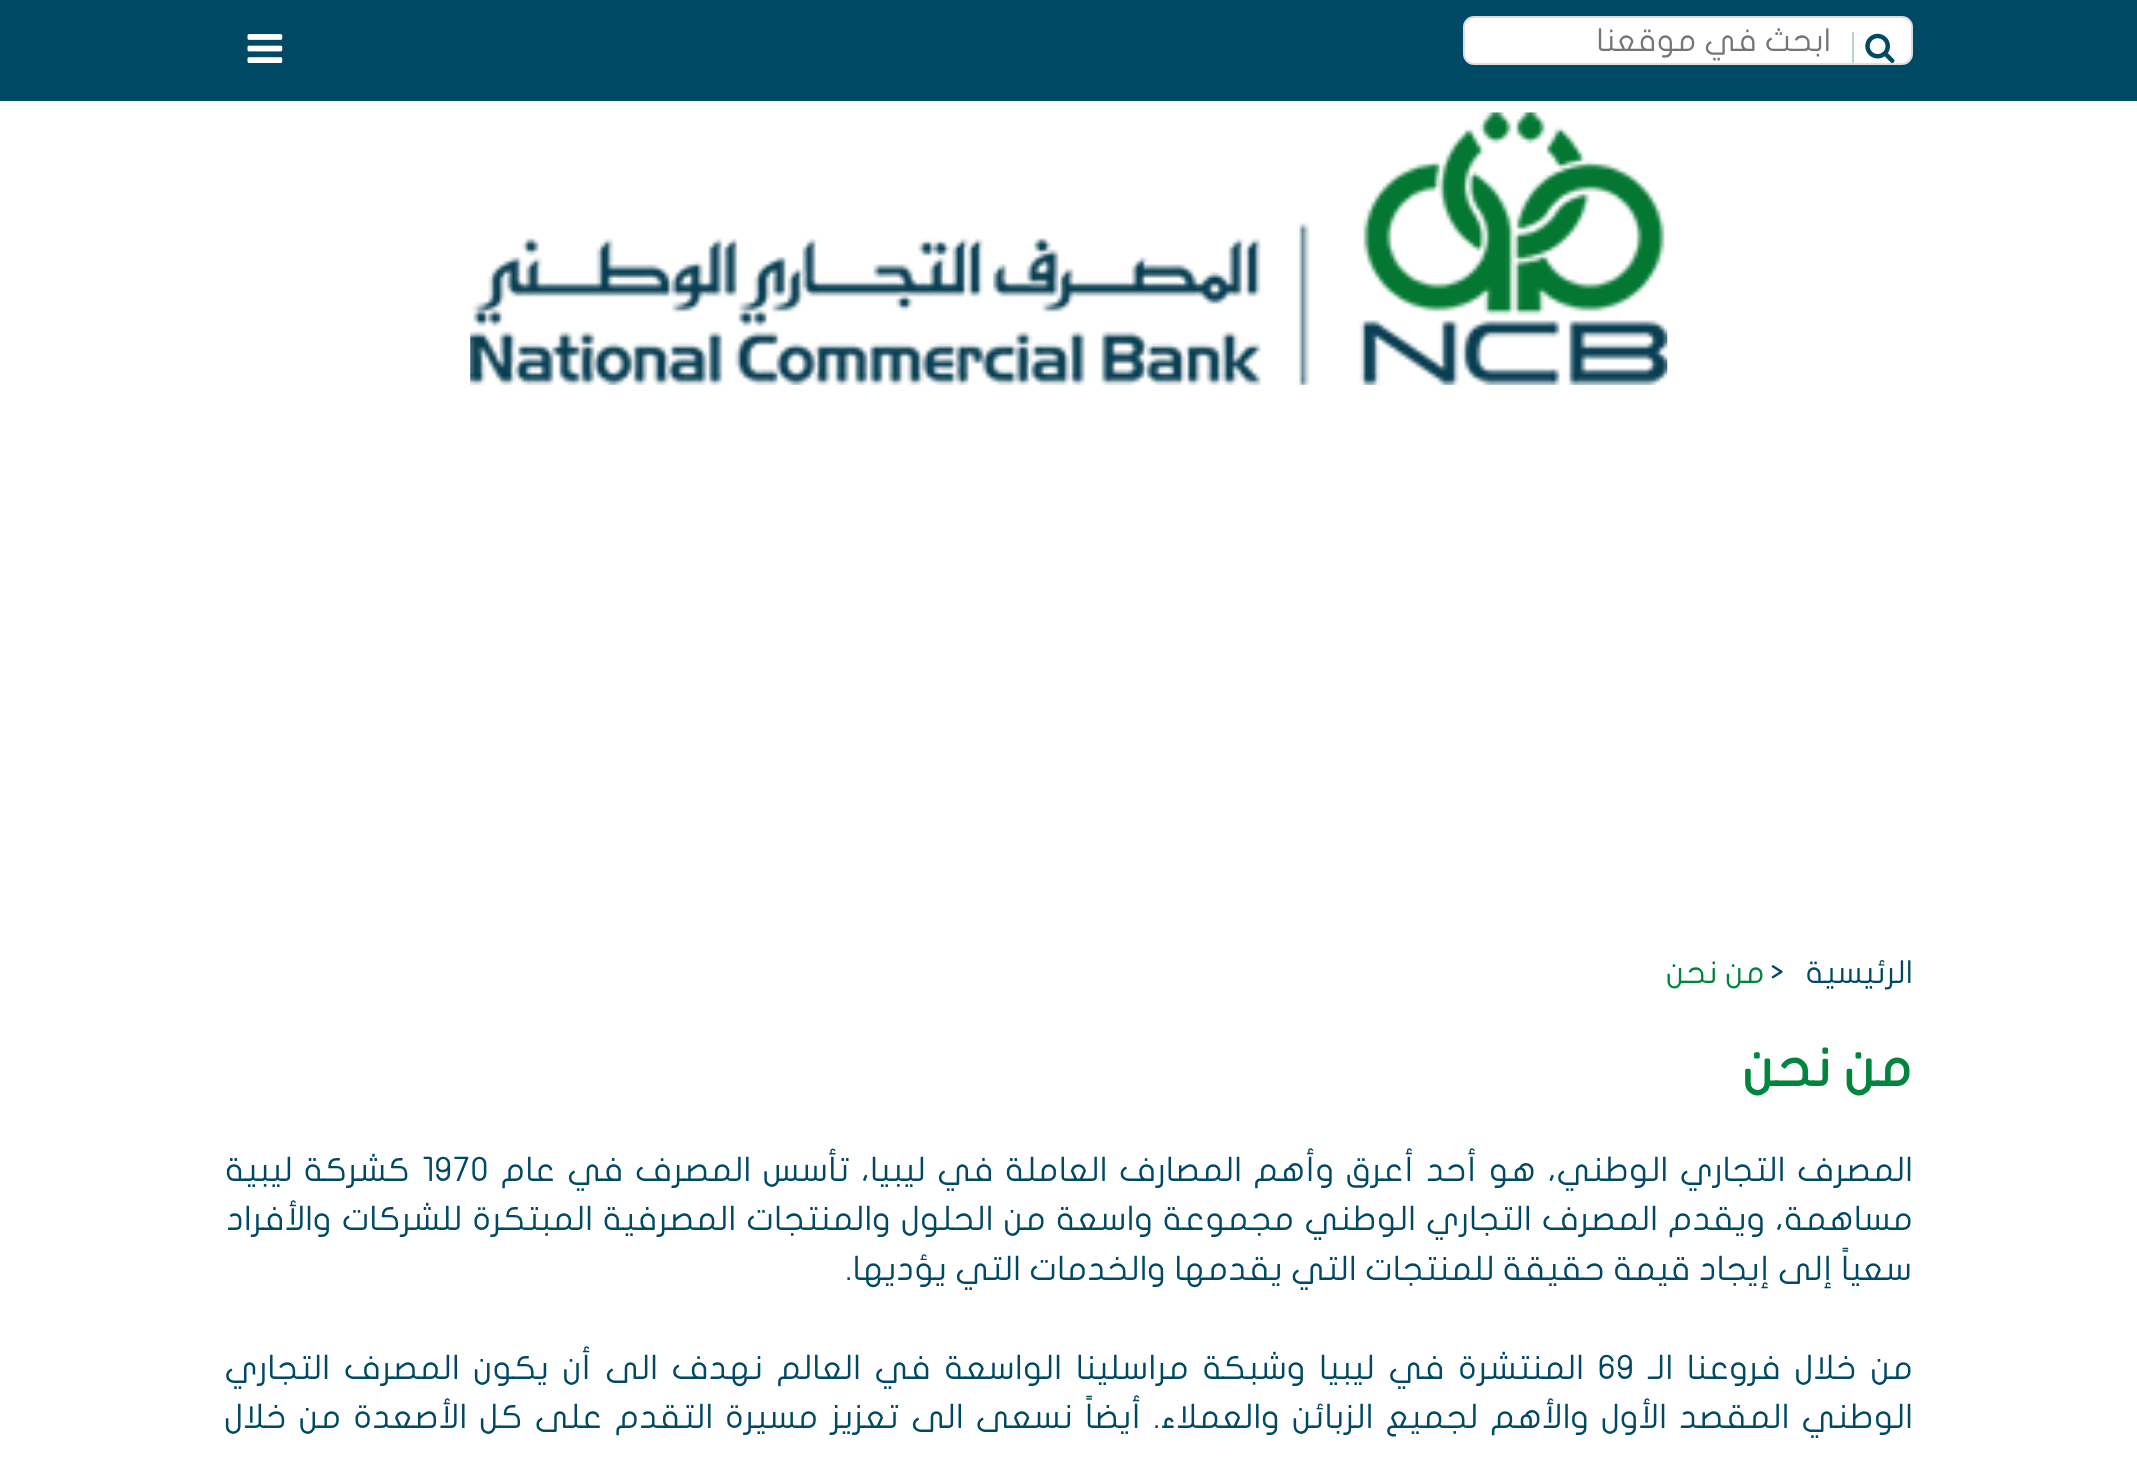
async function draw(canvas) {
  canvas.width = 2137
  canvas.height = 1470
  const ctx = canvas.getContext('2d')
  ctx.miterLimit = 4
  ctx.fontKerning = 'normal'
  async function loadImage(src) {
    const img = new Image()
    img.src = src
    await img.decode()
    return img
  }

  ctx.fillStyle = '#fff'
  ctx.fillRect(0, 0, 2137, 1470)
  ctx.fillStyle = '#004964'
  ctx.fillRect(0, 0, 2137, 101)
  ctx.fillStyle = '#fff'
  ctx.beginPath()
  ctx.roundRect(1464, 17, 448, 47, 10)
  ctx.fill()
  ctx.strokeStyle = '#ddd'
  ctx.lineWidth = 2
  ctx.stroke()
  ctx.fillStyle = '#c1ced4'
  ctx.fillRect(1852, 32, 2, 31)
  ctx.drawImage(await loadImage('image0.png'), 1865, 33, 30, 30)
  ctx.direction = 'rtl'
  ctx.font = '31.5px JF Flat'
  ctx.fillStyle = '#757575'
  ctx.fillText('ابحث في موقعنا', 1831, 51)
  ctx.drawImage(await loadImage('image1.png'), 247, 34, 36, 29)
  ctx.drawImage(await loadImage('image2.png'), 470, 112, 1198, 273)
  ctx.fillStyle = '#004964'
  ctx.fillText('الرئيسية', 1913, 983)
  ctx.direction = 'ltr'
  ctx.fillText('>', 1770, 983)
  ctx.direction = 'rtl'
  ctx.fillStyle = '#00853f'
  ctx.fillText('من نحن', 1765, 983)
  ctx.font = 'bold 54px JF Flat'
  ctx.fillText('من نحن', 1912, 1086)
  ctx.wordSpacing = '3.25px'
  ctx.font = '33.75px JF Flat'
  ctx.fillStyle = '#004964'
  ctx.fillText('المصرف التجاري الوطني، هو أحد أعرق وأهم المصارف العاملة في ليبيا، تأسس المصرف في عام', 1913, 1181)
  ctx.wordSpacing = '0px'
  ctx.direction = 'ltr'
  ctx.fillText('1970', 422, 1181)
  ctx.wordSpacing = '3px'
  ctx.direction = 'rtl'
  ctx.fillText('كشركة ليبية', 410, 1181)
  ctx.wordSpacing = '1.75px'
  ctx.fillText('مساهمة، ويقدم المصرف التجاري الوطني مجموعة واسعة من الحلول والمنتجات المصرفية المبتكرة للشركات والأفراد', 1913, 1230)
  ctx.wordSpacing = '0px'
  ctx.fillText('سعياً إلى إيجاد قيمة حقيقة للمنتجات التي يقدمها والخدمات التي يؤديها.', 1912, 1280)
  ctx.wordSpacing = '5.25px'
  ctx.fillText('من خلال فروعنا الـ', 1913, 1379)
  ctx.wordSpacing = '0px'
  ctx.direction = 'ltr'
  ctx.fillText('69', 1598, 1379)
  ctx.wordSpacing = '5.25px'
  ctx.direction = 'rtl'
  ctx.fillText('المنتشرة في ليبيا وشبكة مراسلينا الواسعة في العالم نهدف الى أن يكون المصرف التجاري', 1584, 1379)
  ctx.wordSpacing = '3.75px'
  ctx.fillText('الوطني المقصد الأول والأهم لجميع الزبائن والعملاء. أيضاً نسعى الى تعزيز مسيرة التقدم على كل الأصعدة من خلال', 1913, 1428)
}

draw(document.querySelector('canvas'))
